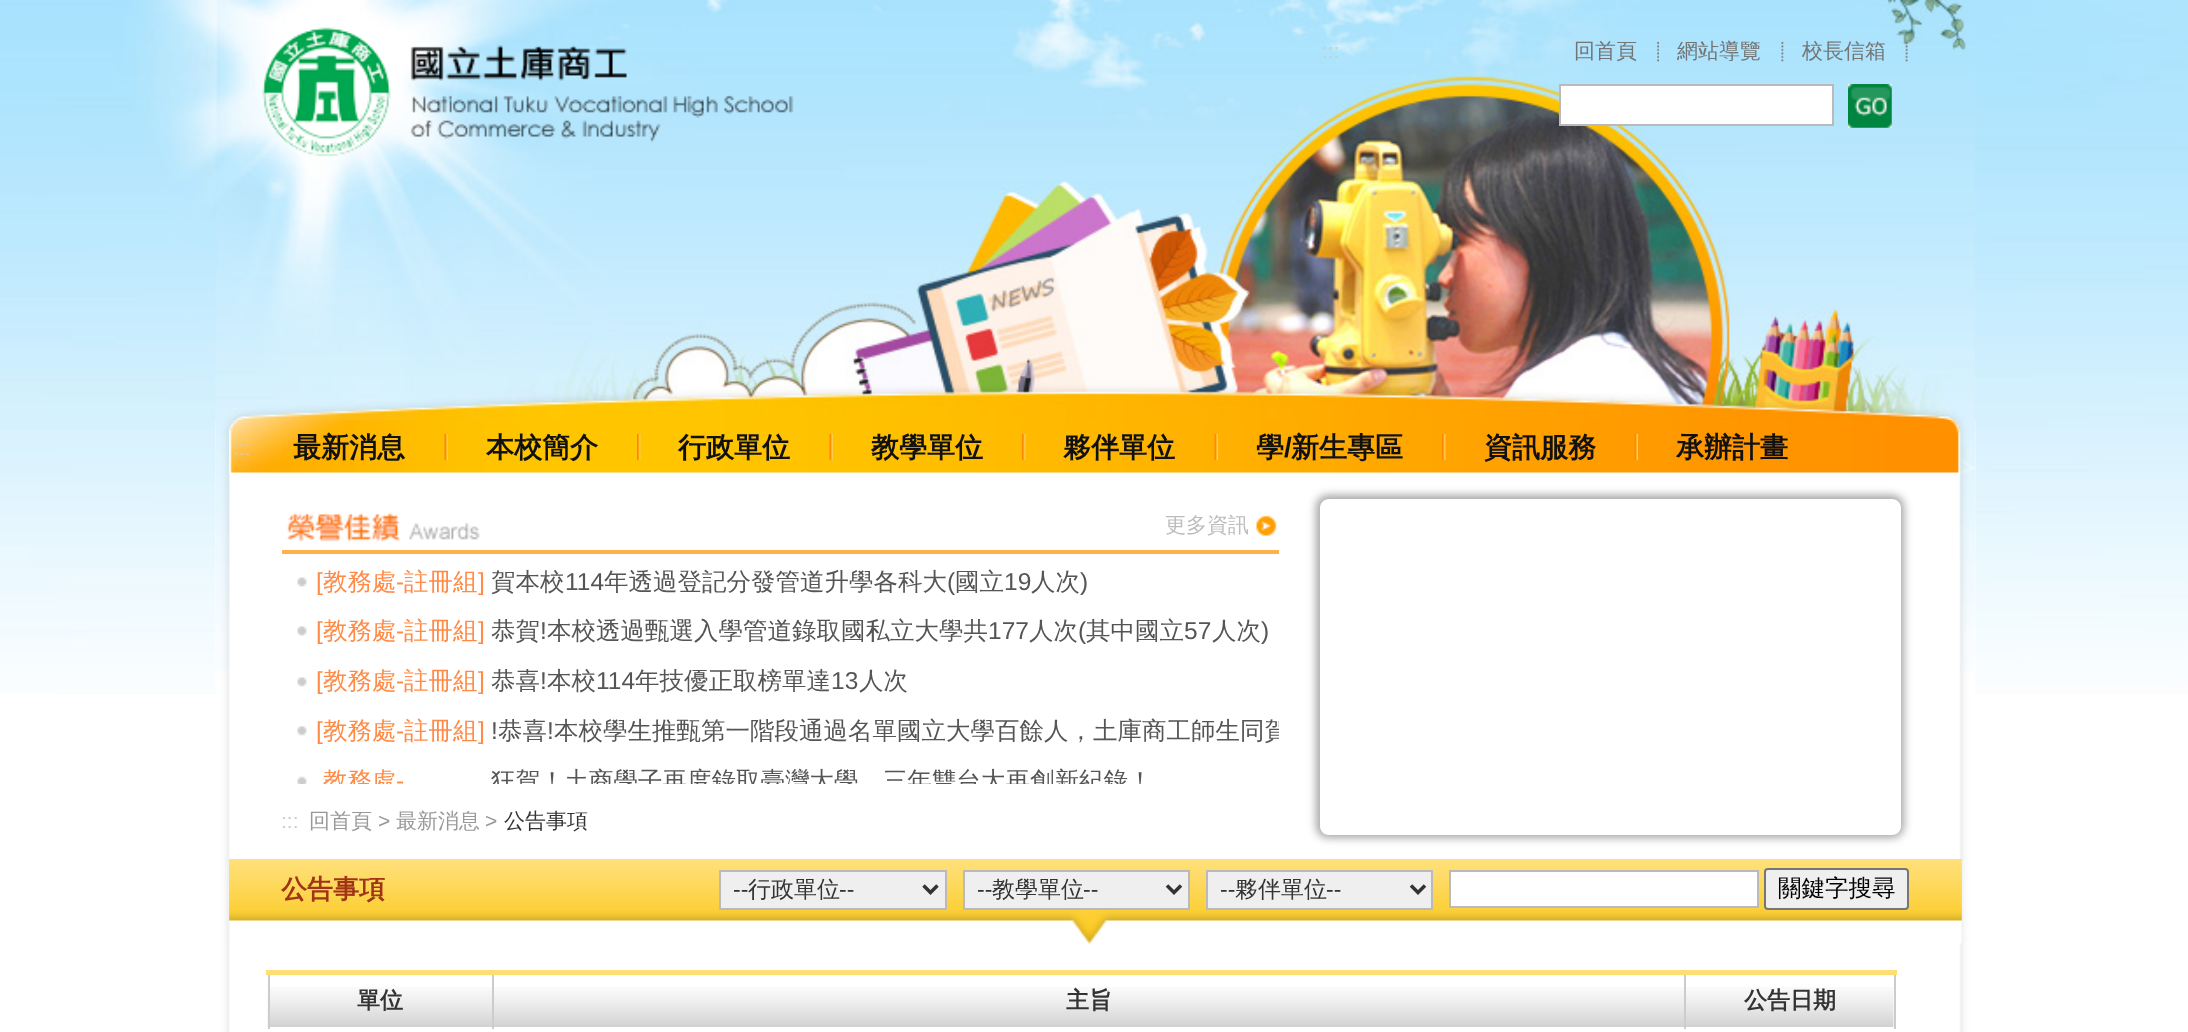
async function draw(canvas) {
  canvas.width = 2188
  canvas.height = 1032
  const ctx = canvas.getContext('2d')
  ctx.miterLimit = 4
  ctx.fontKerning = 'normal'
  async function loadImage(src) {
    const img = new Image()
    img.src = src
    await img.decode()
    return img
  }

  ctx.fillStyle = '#fff'
  ctx.fillRect(0, 0, 2188, 1032)
  ctx.drawImage(await loadImage('image0.png'), 0, 0, 2188, 694)
  ctx.drawImage(await loadImage('image1.png'), 215, 0, 1760, 420)
  ctx.drawImage(await loadImage('image2.png'), 262, 27, 532, 130)
  ctx.font = '21px Liberation Sans'
  ctx.fillStyle = '#ccc'
  ctx.fillText(':::', 1322, 58)
  ctx.drawImage(await loadImage('image3.png'), 1657, 42, 2, 20)
  ctx.font = '500 21px WenQuanYi Zen Hei'
  ctx.fillStyle = '#747474'
  ctx.fillText('回首頁', 1574, 58)
  ctx.drawImage(await loadImage('image4.png'), 1781, 42, 3, 20)
  ctx.fillText('網站導覽', 1677, 58)
  ctx.drawImage(await loadImage('image5.png'), 1905, 42, 3, 20)
  ctx.fillText('校長信箱', 1802, 58)
  ctx.fillStyle = '#fff'
  ctx.beginPath()
  ctx.rect(1560, 85, 273, 40)
  ctx.fill()
  ctx.strokeStyle = '#bbbaba'
  ctx.lineWidth = 2
  ctx.stroke()
  ctx.drawImage(await loadImage('image6.png'), 1848, 84, 44, 44)
  ctx.drawImage(await loadImage('image7.png'), 215, 420, 1761, 612)
  ctx.drawImage(await loadImage('image8.png'), 215, 420, 1761, 253)
  ctx.drawImage(await loadImage('image9.png'), 229, 420, 1733, 53)
  ctx.font = '21px Liberation Sans'
  ctx.fillStyle = '#ccc'
  ctx.fillText(':::', 233, 455)
  ctx.drawImage(await loadImage('image10.png'), 444, 434, 4, 27)
  ctx.font = 'bold 28px WenQuanYi Zen Hei'
  ctx.fillStyle = '#111'
  ctx.fillText('最新消息', 293, 457)
  ctx.drawImage(await loadImage('image11.png'), 637, 434, 4, 27)
  ctx.fillText('本校簡介', 486, 457)
  ctx.drawImage(await loadImage('image12.png'), 829, 434, 4, 27)
  ctx.fillText('行政單位', 678, 457)
  ctx.drawImage(await loadImage('image13.png'), 1022, 434, 4, 27)
  ctx.fillText('教學單位', 871, 457)
  ctx.drawImage(await loadImage('image14.png'), 1214, 434, 4, 27)
  ctx.fillText('夥伴單位', 1063, 457)
  ctx.drawImage(await loadImage('image15.png'), 1442, 434, 4, 27)
  ctx.fillText('學', 1256, 457)
  ctx.font = 'bold 28px Liberation Sans'
  ctx.fillText('/', 1284, 457)
  ctx.font = 'bold 28px WenQuanYi Zen Hei'
  ctx.fillText('新生專區', 1291, 457)
  ctx.drawImage(await loadImage('image16.png'), 1634, 434, 4, 27)
  ctx.fillText('資訊服務', 1484, 457)
  ctx.fillText('承辦計畫', 1676, 457)
  ctx.fillStyle = '#ffb24c'
  ctx.fillRect(282, 550, 997, 4)
  ctx.drawImage(await loadImage('image17.png'), 286, 512, 194, 30)
  ctx.drawImage(await loadImage('image18.png'), 1256, 515, 21, 21)
  ctx.font = '500 21px WenQuanYi Zen Hei'
  ctx.fillStyle = '#bcbcbc'
  ctx.fillText('更多資訊', 1165, 532)
  ctx.drawImage(await loadImage('image19.png'), 297, 577, 10, 10)
  ctx.font = '24.5px Liberation Sans'
  ctx.fillStyle = '#ff8b47'
  ctx.fillText('[', 316, 590)
  ctx.font = '500 24.5px WenQuanYi Zen Hei'
  ctx.fillText('教務處', 323, 590)
  ctx.font = '24.5px Liberation Sans'
  ctx.fillText('-', 396, 590)
  ctx.font = '500 24.5px WenQuanYi Zen Hei'
  ctx.fillText('註冊組', 404, 590)
  ctx.font = '24.5px Liberation Sans'
  ctx.fillText(']', 478, 590)
  ctx.font = '500 24.5px WenQuanYi Zen Hei'
  ctx.fillStyle = '#555'
  ctx.fillText('賀本校', 491, 590)
  ctx.font = '24.5px Liberation Sans'
  ctx.fillText('114', 565, 590)
  ctx.font = '500 24.5px WenQuanYi Zen Hei'
  ctx.fillText('年透過登記分發管道升學各科大', 604, 590)
  ctx.font = '24.5px Liberation Sans'
  ctx.fillText('(', 947, 590)
  ctx.font = '500 24.5px WenQuanYi Zen Hei'
  ctx.fillText('國立', 955, 590)
  ctx.font = '24.5px Liberation Sans'
  ctx.fillText('19', 1004, 590)
  ctx.font = '500 24.5px WenQuanYi Zen Hei'
  ctx.fillText('人次', 1031, 590)
  ctx.font = '24.5px Liberation Sans'
  ctx.fillText(')', 1080, 590)
  ctx.drawImage(await loadImage('image19.png'), 297, 626, 10, 10)
  ctx.fillStyle = '#ff8b47'
  ctx.fillText('[', 316, 639)
  ctx.font = '500 24.5px WenQuanYi Zen Hei'
  ctx.fillText('教務處', 323, 639)
  ctx.font = '24.5px Liberation Sans'
  ctx.fillText('-', 396, 639)
  ctx.font = '500 24.5px WenQuanYi Zen Hei'
  ctx.fillText('註冊組', 404, 639)
  ctx.font = '24.5px Liberation Sans'
  ctx.fillText(']', 478, 639)
  ctx.font = '500 24.5px WenQuanYi Zen Hei'
  ctx.fillStyle = '#555'
  ctx.fillText('恭賀', 491, 639)
  ctx.font = '24.5px Liberation Sans'
  ctx.fillText('!', 540, 639)
  ctx.font = '500 24.5px WenQuanYi Zen Hei'
  ctx.fillText('本校透過甄選入學管道錄取國私立大學共', 547, 639)
  ctx.font = '24.5px Liberation Sans'
  ctx.fillText('177', 988, 639)
  ctx.font = '500 24.5px WenQuanYi Zen Hei'
  ctx.fillText('人次', 1029, 639)
  ctx.font = '24.5px Liberation Sans'
  ctx.fillText('(', 1078, 639)
  ctx.font = '500 24.5px WenQuanYi Zen Hei'
  ctx.fillText('其中國立', 1086, 639)
  ctx.font = '24.5px Liberation Sans'
  ctx.fillText('57', 1184, 639)
  ctx.font = '500 24.5px WenQuanYi Zen Hei'
  ctx.fillText('人次', 1212, 639)
  ctx.font = '24.5px Liberation Sans'
  ctx.fillText(')', 1261, 639)
  ctx.drawImage(await loadImage('image20.png'), 297, 677, 10, 10)
  ctx.fillStyle = '#ff8b47'
  ctx.fillText('[', 316, 689)
  ctx.font = '500 24.5px WenQuanYi Zen Hei'
  ctx.fillText('教務處', 323, 689)
  ctx.font = '24.5px Liberation Sans'
  ctx.fillText('-', 396, 689)
  ctx.font = '500 24.5px WenQuanYi Zen Hei'
  ctx.fillText('註冊組', 404, 689)
  ctx.font = '24.5px Liberation Sans'
  ctx.fillText(']', 478, 689)
  ctx.font = '500 24.5px WenQuanYi Zen Hei'
  ctx.fillStyle = '#555'
  ctx.fillText('恭喜', 491, 689)
  ctx.font = '24.5px Liberation Sans'
  ctx.fillText('!', 540, 689)
  ctx.font = '500 24.5px WenQuanYi Zen Hei'
  ctx.fillText('本校', 547, 689)
  ctx.font = '24.5px Liberation Sans'
  ctx.fillText('114', 596, 689)
  ctx.font = '500 24.5px WenQuanYi Zen Hei'
  ctx.fillText('年技優正取榜單達', 635, 689)
  ctx.font = '24.5px Liberation Sans'
  ctx.fillText('13', 831, 689)
  ctx.font = '500 24.5px WenQuanYi Zen Hei'
  ctx.fillText('人次', 859, 689)
  ctx.drawImage(await loadImage('image20.png'), 297, 726, 10, 10)
  ctx.font = '24.5px Liberation Sans'
  ctx.fillStyle = '#ff8b47'
  ctx.fillText('[', 316, 739)
  ctx.font = '500 24.5px WenQuanYi Zen Hei'
  ctx.fillText('教務處', 323, 739)
  ctx.font = '24.5px Liberation Sans'
  ctx.fillText('-', 396, 739)
  ctx.font = '500 24.5px WenQuanYi Zen Hei'
  ctx.fillText('註冊組', 404, 739)
  ctx.font = '24.5px Liberation Sans'
  ctx.fillText(']', 478, 739)
  ctx.fillStyle = '#555'
  ctx.fillText('!', 491, 739)
  ctx.font = '500 24.5px WenQuanYi Zen Hei'
  ctx.fillText('恭喜', 498, 739)
  ctx.font = '24.5px Liberation Sans'
  ctx.fillText('!', 547, 739)
  ctx.save()
  ctx.beginPath()
  ctx.rect(282, 557, 997, 227)
  ctx.clip()
  ctx.font = '500 24.5px WenQuanYi Zen Hei'
  ctx.fillText('本校學生推甄第一階段通過名單國立大學百餘人，土庫商工師生同賀', 554, 739)
  ctx.restore()
  ctx.drawImage(await loadImage('image21.png'), 297, 776, 10, 8)
  ctx.save()
  ctx.beginPath()
  ctx.rect(282, 557, 997, 227)
  ctx.clip()
  ctx.font = '500 24.5px WenQuanYi Zen Hei'
  ctx.fillStyle = '#ff8b47'
  ctx.fillText('教務處', 323, 789)
  ctx.restore()
  ctx.fillStyle = '#ff8b47'
  ctx.fillText('-', 396, 789)
  ctx.save()
  ctx.beginPath()
  ctx.rect(282, 557, 997, 227)
  ctx.clip()
  ctx.font = '500 24.5px WenQuanYi Zen Hei'
  ctx.fillStyle = '#555'
  ctx.fillText('狂賀！土商學子再度錄取臺灣大學，三年雙台大再創新紀錄！', 491, 789)
  ctx.restore()
  ctx.save()
  ctx.beginPath()
  ctx.moveTo(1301, 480)
  ctx.lineTo(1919, 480)
  ctx.lineTo(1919, 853)
  ctx.lineTo(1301, 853)
  ctx.closePath()
  ctx.moveTo(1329, 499)
  ctx.lineTo(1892, 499)
  ctx.bezierCurveTo(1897, 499, 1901, 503, 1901, 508)
  ctx.lineTo(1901, 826)
  ctx.bezierCurveTo(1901, 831, 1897, 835, 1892, 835)
  ctx.lineTo(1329, 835)
  ctx.bezierCurveTo(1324, 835, 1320, 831, 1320, 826)
  ctx.lineTo(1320, 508)
  ctx.bezierCurveTo(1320, 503, 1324, 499, 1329, 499)
  ctx.closePath()
  ctx.clip('evenodd')
  ctx.fillStyle = '#00000059'
  ctx.filter = 'blur(4.5px)'
  ctx.beginPath()
  ctx.roundRect(1316, 495, 588, 343, 12)
  ctx.fill()
  ctx.filter = 'none'
  ctx.restore()
  ctx.font = '21px Liberation Sans'
  ctx.fillStyle = '#ccc'
  ctx.fillText(':::', 281, 828)
  ctx.font = '500 21px WenQuanYi Zen Hei'
  ctx.fillStyle = '#999'
  ctx.fillText('回首頁', 309, 828)
  ctx.font = '21px Liberation Sans'
  ctx.fillText('>', 378, 828)
  ctx.font = '500 21px WenQuanYi Zen Hei'
  ctx.fillText('最新消息', 396, 828)
  ctx.font = '21px Liberation Sans'
  ctx.fillText('>', 485, 828)
  ctx.font = '500 21px WenQuanYi Zen Hei'
  ctx.fillStyle = '#333'
  ctx.fillText('公告事項', 504, 828)
  ctx.fillStyle = '#ffe281'
  ctx.fillRect(229, 859, 1733, 84)
  ctx.drawImage(await loadImage('image22.png'), 229, 859, 1733, 85)
  ctx.font = 'bold 26px WenQuanYi Zen Hei'
  ctx.fillStyle = '#a13415'
  ctx.fillText('公告事項', 281, 898)
  ctx.fillStyle = '#efefef'
  ctx.beginPath()
  ctx.rect(720, 871, 226, 38)
  ctx.fill()
  ctx.stroke()
  ctx.beginPath()
  ctx.moveTo(923.5, 885.5)
  ctx.lineTo(930.5, 892.5)
  ctx.lineTo(937.5, 885.5)
  ctx.strokeStyle = '#333'
  ctx.lineWidth = 3.5
  ctx.stroke()
  ctx.font = '23px Liberation Sans'
  ctx.fillStyle = '#333'
  ctx.fillText('--', 733, 897)
  ctx.font = '500 23px WenQuanYi Zen Hei'
  ctx.fillText('行政單位', 748, 897)
  ctx.font = '23px Liberation Sans'
  ctx.fillText('--', 839, 897)
  ctx.fillStyle = '#efefef'
  ctx.beginPath()
  ctx.rect(964, 871, 225, 38)
  ctx.fill()
  ctx.strokeStyle = '#bbbaba'
  ctx.lineWidth = 2
  ctx.stroke()
  ctx.beginPath()
  ctx.moveTo(1167, 885.5)
  ctx.lineTo(1174, 892.5)
  ctx.lineTo(1181, 885.5)
  ctx.strokeStyle = '#333'
  ctx.lineWidth = 3.5
  ctx.stroke()
  ctx.fillStyle = '#333'
  ctx.fillText('--', 977, 897)
  ctx.font = '500 23px WenQuanYi Zen Hei'
  ctx.fillText('教學單位', 992, 897)
  ctx.font = '23px Liberation Sans'
  ctx.fillText('--', 1083, 897)
  ctx.fillStyle = '#efefef'
  ctx.beginPath()
  ctx.rect(1207, 871, 225, 38)
  ctx.fill()
  ctx.strokeStyle = '#bbbaba'
  ctx.lineWidth = 2
  ctx.stroke()
  ctx.beginPath()
  ctx.moveTo(1411, 885.5)
  ctx.lineTo(1418, 892.5)
  ctx.lineTo(1425, 885.5)
  ctx.strokeStyle = '#333'
  ctx.lineWidth = 3.5
  ctx.stroke()
  ctx.fillStyle = '#333'
  ctx.fillText('--', 1220, 897)
  ctx.font = '500 23px WenQuanYi Zen Hei'
  ctx.fillText('夥伴單位', 1235, 897)
  ctx.font = '23px Liberation Sans'
  ctx.fillText('--', 1326, 897)
  ctx.fillStyle = '#fff'
  ctx.beginPath()
  ctx.rect(1450, 871, 308, 36)
  ctx.fill()
  ctx.strokeStyle = '#bbbaba'
  ctx.lineWidth = 2
  ctx.stroke()
  ctx.fillStyle = '#efefef'
  ctx.beginPath()
  ctx.roundRect(1765, 869, 143, 40, 3)
  ctx.fill()
  ctx.strokeStyle = '#767676'
  ctx.stroke()
  ctx.font = '500 23.5px WenQuanYi Zen Hei'
  ctx.fillStyle = '#000'
  ctx.fillText('關鍵字搜尋', 1778, 896)
  ctx.drawImage(await loadImage('image23.png'), 267, 987, 225, 41)
  ctx.fillStyle = '#fff'
  ctx.fillRect(268, 1027, 224, 1)
  ctx.fillStyle = '#ccc'
  ctx.fillRect(268, 971, 2, 58)
  ctx.font = 'bold 23px WenQuanYi Zen Hei'
  ctx.fillStyle = '#333'
  ctx.fillText('單位', 357, 1008)
  ctx.drawImage(await loadImage('image24.png'), 494, 987, 1190, 40)
  ctx.fillStyle = '#ccc'
  ctx.fillRect(492, 971, 2, 58)
  ctx.fillStyle = '#333'
  ctx.fillText('主旨', 1066, 1008)
  ctx.drawImage(await loadImage('image25.png'), 1686, 987, 208, 40)
  ctx.fillStyle = '#ccc'
  ctx.fillRect(1894, 971, 2, 58)
  ctx.fillRect(1684, 971, 2, 58)
  ctx.fillStyle = '#ffdf74'
  ctx.fillRect(266, 970, 1631, 5)
  ctx.fillStyle = '#333'
  ctx.fillText('公告日期', 1744, 1008)
}

draw(document.querySelector('canvas'))
